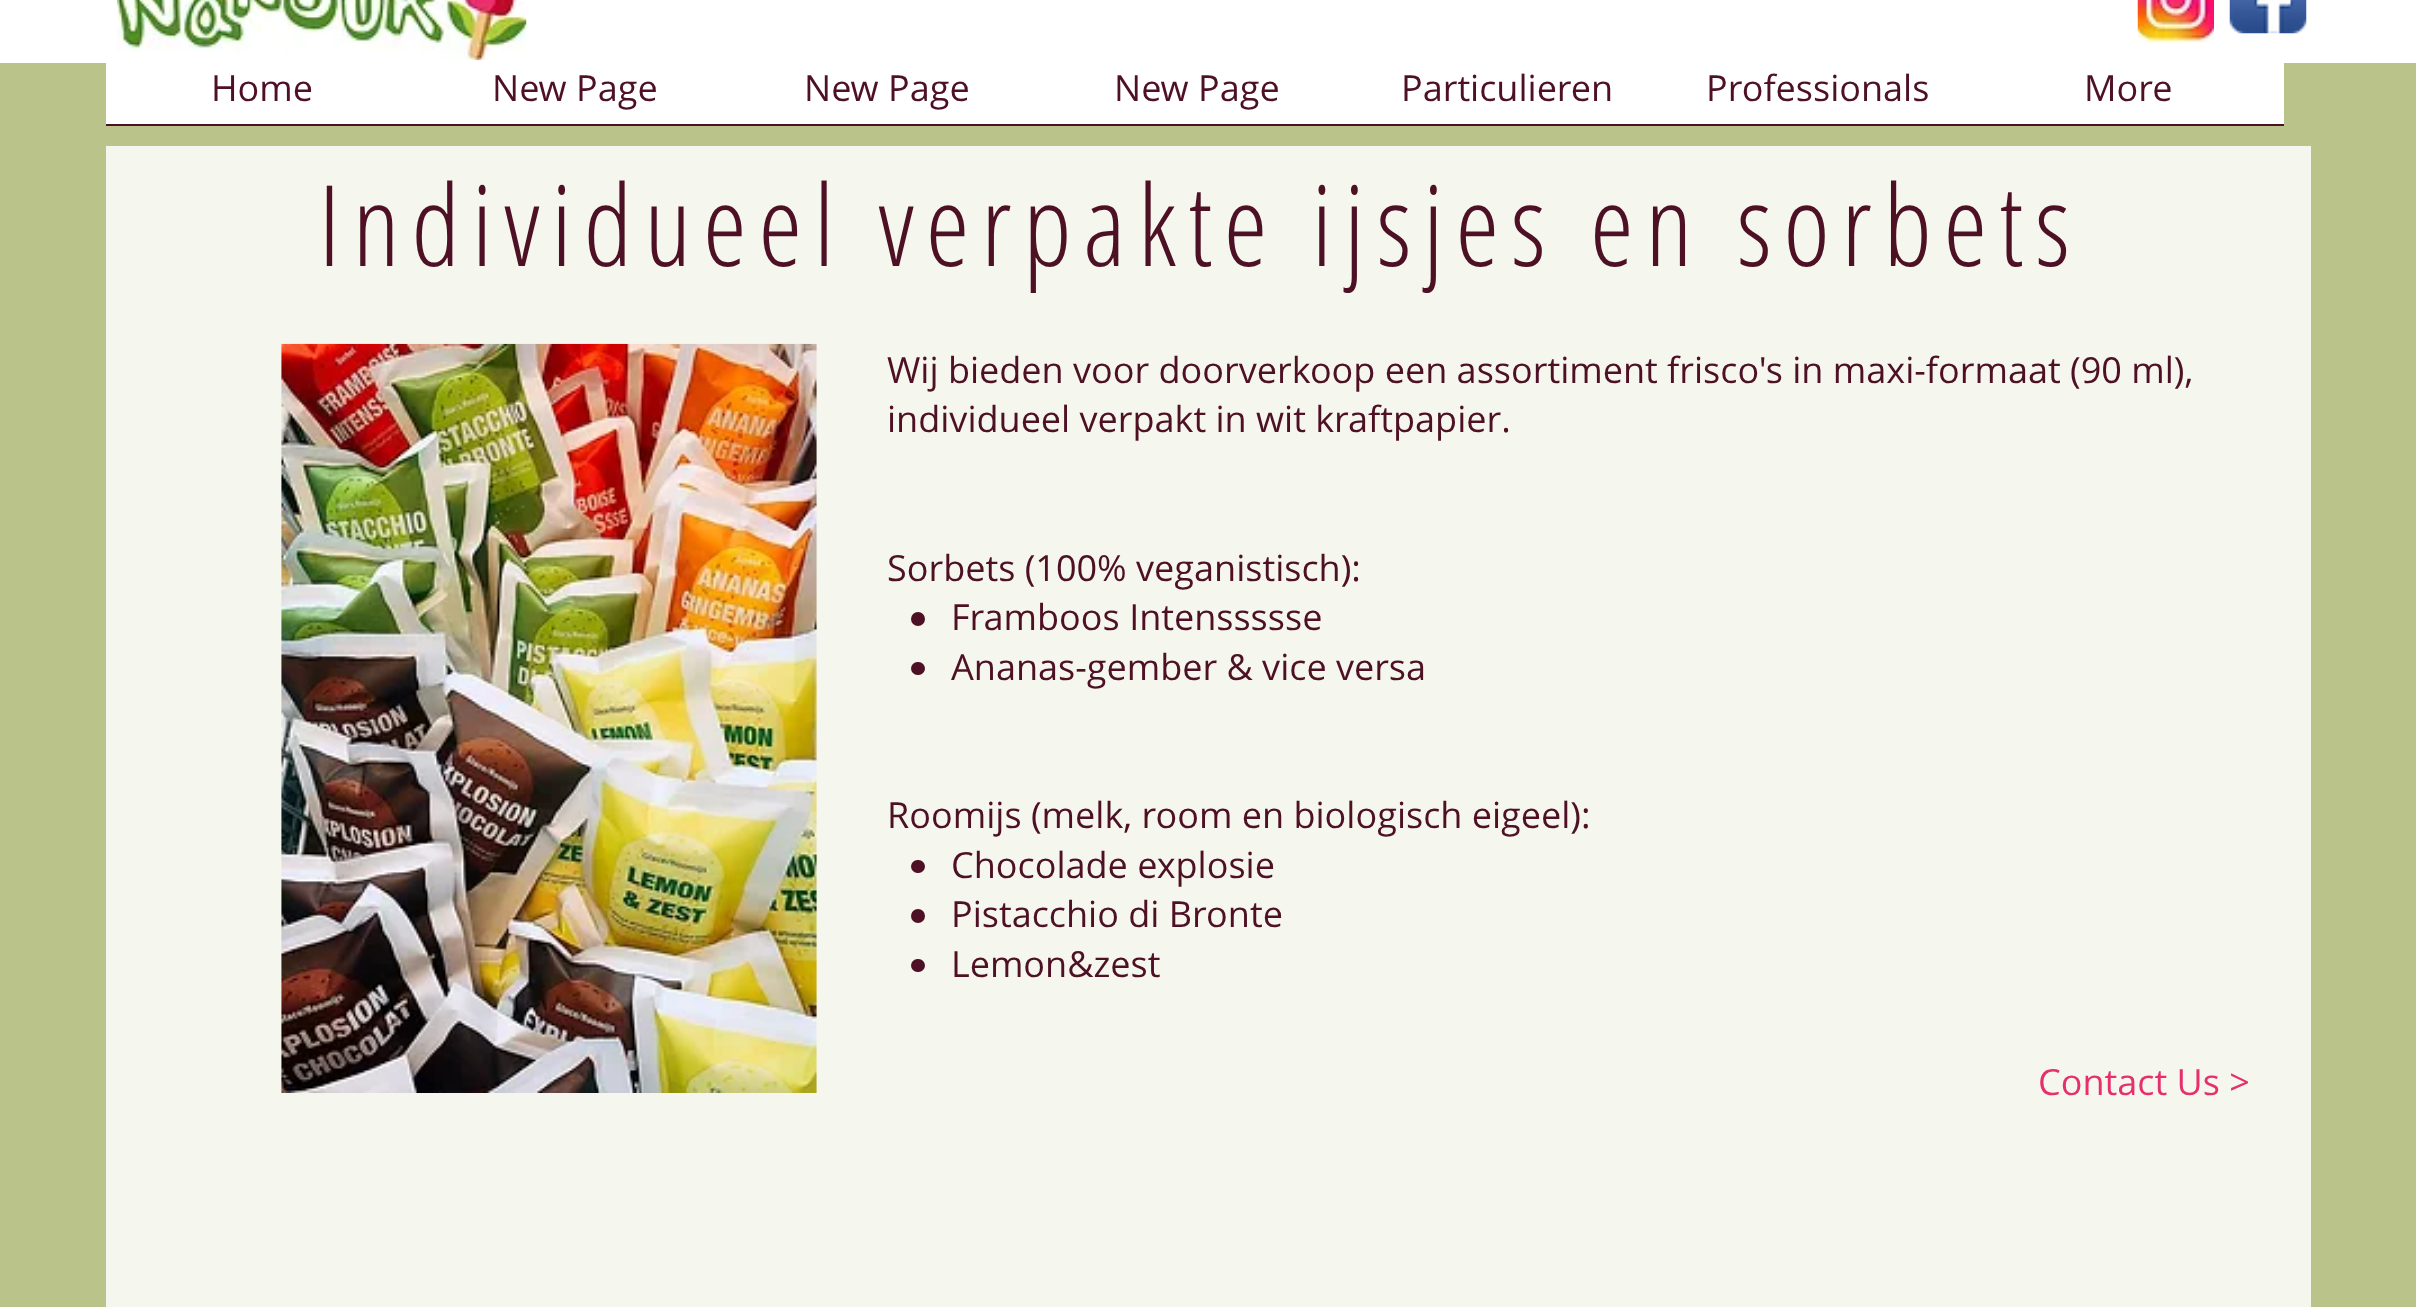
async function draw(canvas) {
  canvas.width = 2416
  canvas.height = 1307
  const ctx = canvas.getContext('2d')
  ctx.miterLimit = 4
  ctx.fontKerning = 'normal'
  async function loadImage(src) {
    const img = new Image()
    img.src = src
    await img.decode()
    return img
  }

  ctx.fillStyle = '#b9c38a'
  ctx.fillRect(0, 0, 2416, 1307)
  ctx.fillStyle = '#fff'
  ctx.fillRect(0, 0, 2416, 63)
  ctx.drawImage(await loadImage('image0.png'), 117, 0, 410, 61)
  ctx.drawImage(await loadImage('image1.png'), 2137, 0, 77, 43)
  ctx.drawImage(await loadImage('image2.png'), 2229, 0, 78, 34)
  ctx.fillRect(106, 63, 2178, 61)
  ctx.fillStyle = '#4d1024'
  ctx.fillRect(106, 124, 2178, 2)
  ctx.font = '36px Open Sans'
  ctx.fillText('Home', 211, 101)
  ctx.fillText('New Page', 492, 101)
  ctx.fillText('New Page', 804, 101)
  ctx.fillText('New Page', 1114, 101)
  ctx.fillText('Particulieren', 1401, 101)
  ctx.fillText('Professionals', 1706, 101)
  ctx.fillText('More', 2084, 101)
  ctx.fillStyle = '#f5f6ed'
  ctx.fillRect(106, 146, 2205, 1161)
  ctx.letterSpacing = '11.25px'
  ctx.font = '300 112.5px Open Sans Condensed'
  ctx.fillStyle = '#4d1024'
  ctx.fillText('Individueel verpakte ijsjes en sorbets', 318, 266)
  ctx.drawImage(await loadImage('image3.png'), 281, 343, 536, 750)
  ctx.letterSpacing = '0px'
  ctx.font = '36px Open Sans'
  ctx.fillText('Wij bieden voor doorverkoop een assortiment frisco\'s in maxi-formaat (90 ml),', 887, 383)
  ctx.fillText('individueel verpakt in wit kraftpapier.', 887, 432)
  ctx.fillText('Sorbets (100% veganistisch):', 887, 581)
  ctx.beginPath()
  ctx.arc(918, 619, 7, 0, 2 * Math.PI)
  ctx.fill()
  ctx.fillText('Framboos Intenssssse', 951, 630)
  ctx.beginPath()
  ctx.roundRect(911, 662, 14, 13, 6.5)
  ctx.fill()
  ctx.fillText('Ananas-gember & vice versa', 951, 680)
  ctx.fillText('Roomijs (melk, room en biologisch eigeel):', 887, 828)
  ctx.beginPath()
  ctx.roundRect(911, 860, 14, 13, 6.5)
  ctx.fill()
  ctx.fillText('Chocolade explosie', 951, 878)
  ctx.beginPath()
  ctx.arc(918, 916, 7, 0, 2 * Math.PI)
  ctx.fill()
  ctx.fillText('Pistacchio di Bronte', 951, 927)
  ctx.beginPath()
  ctx.roundRect(911, 959, 14, 13, 6.5)
  ctx.fill()
  ctx.fillText('Lemon&zest', 951, 977)
  ctx.fillStyle = '#e6306d'
  ctx.fillText('Contact Us >', 2038, 1095)
}

draw(document.querySelector('canvas'))
